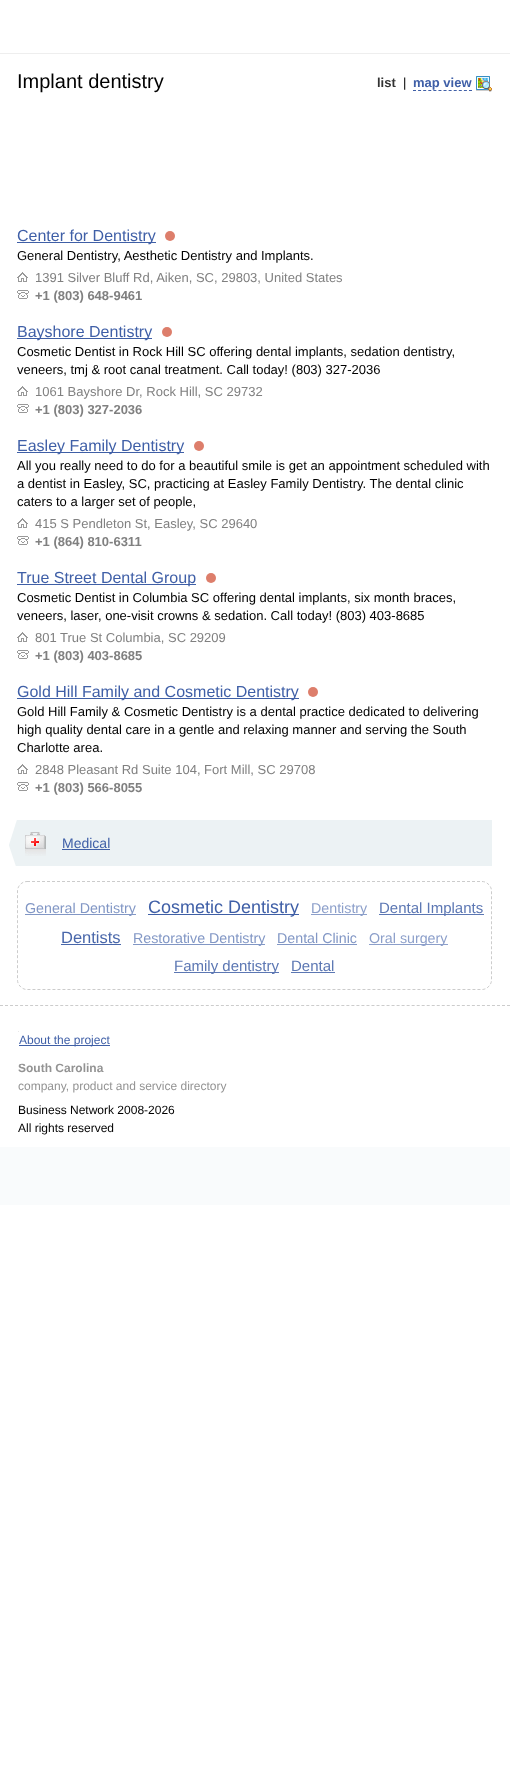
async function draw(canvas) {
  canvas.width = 510
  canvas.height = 1768
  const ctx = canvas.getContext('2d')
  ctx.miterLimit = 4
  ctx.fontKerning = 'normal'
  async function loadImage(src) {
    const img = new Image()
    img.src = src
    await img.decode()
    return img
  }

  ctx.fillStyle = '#fff'
  ctx.fillRect(0, 0, 510, 1768)
  ctx.fillStyle = '#eee'
  ctx.fillRect(0, 53, 510, 1)
  ctx.font = '20px Liberation Sans'
  ctx.fillStyle = '#000'
  ctx.fillText('Implant dentistry', 17, 88)
  ctx.font = 'bold 13px Liberation Sans'
  ctx.fillStyle = '#333'
  ctx.fillText('list', 377, 87)
  ctx.font = '13px Liberation Sans'
  ctx.fillStyle = '#000'
  ctx.fillText('|', 403, 87)
  ctx.font = 'bold 13px Liberation Sans'
  ctx.fillStyle = '#3f5fa7'
  ctx.fillText('map view', 413, 87)
  ctx.beginPath()
  ctx.moveTo(413, 90.5)
  ctx.lineTo(472, 90.5)
  ctx.strokeStyle = '#3f5fa7'
  ctx.setLineDash([3, 2.09])
  ctx.stroke()
  ctx.drawImage(await loadImage('image0.png'), 476, 76, 16, 16)
  ctx.fillStyle = '#3f5fa6'
  ctx.fillRect(17, 242, 139, 1)
  ctx.font = '16px Liberation Sans'
  ctx.fillStyle = '#3f5fa7'
  ctx.fillText('Center for Dentistry', 17, 241)
  ctx.fillStyle = '#dd7e6b'
  ctx.beginPath()
  ctx.arc(170, 236, 5, 0, 2 * Math.PI)
  ctx.fill()
  ctx.font = '13px Liberation Sans'
  ctx.fillStyle = '#000'
  ctx.fillText('General Dentistry, Aesthetic Dentistry and Implants.', 17, 260)
  ctx.drawImage(await loadImage('image1.png'), 17, 272, 11, 10)
  ctx.fillStyle = '#808080'
  ctx.fillText('1391 Silver Bluff Rd, Aiken, SC, 29803, United States', 35, 282)
  ctx.drawImage(await loadImage('image2.png'), 17, 290, 12, 9)
  ctx.font = 'bold 13px Liberation Sans'
  ctx.fillText('+1 (803) 648-9461', 35, 300)
  ctx.fillStyle = '#3f5fa6'
  ctx.fillRect(17, 338, 135, 1)
  ctx.font = '16px Liberation Sans'
  ctx.fillStyle = '#3f5fa7'
  ctx.fillText('Bayshore Dentistry', 17, 337)
  ctx.fillStyle = '#dd7e6b'
  ctx.beginPath()
  ctx.arc(167, 332, 5, 0, 2 * Math.PI)
  ctx.fill()
  ctx.font = '13px Liberation Sans'
  ctx.fillStyle = '#000'
  ctx.fillText('Cosmetic Dentist in Rock Hill SC offering dental implants, sedation dentistry,', 17, 356)
  ctx.fillText('veneers, tmj & root canal treatment. Call today! (803) 327-2036', 17, 374)
  ctx.drawImage(await loadImage('image1.png'), 17, 386, 11, 10)
  ctx.fillStyle = '#808080'
  ctx.fillText('1061 Bayshore Dr, Rock Hill, SC 29732', 35, 396)
  ctx.drawImage(await loadImage('image2.png'), 17, 404, 12, 9)
  ctx.font = 'bold 13px Liberation Sans'
  ctx.fillText('+1 (803) 327-2036', 35, 414)
  ctx.fillStyle = '#3f5fa6'
  ctx.fillRect(17, 452, 167, 1)
  ctx.font = '16px Liberation Sans'
  ctx.fillStyle = '#3f5fa7'
  ctx.fillText('Easley Family Dentistry', 17, 451)
  ctx.fillStyle = '#dd7e6b'
  ctx.beginPath()
  ctx.arc(199, 446, 5, 0, 2 * Math.PI)
  ctx.fill()
  ctx.font = '13px Liberation Sans'
  ctx.fillStyle = '#000'
  ctx.fillText('All you really need to do for a beautiful smile is get an appointment scheduled with', 17, 470)
  ctx.fillText('a dentist in Easley, SC, practicing at Easley Family Dentistry. The dental clinic', 17, 488)
  ctx.fillText('caters to a larger set of people,', 17, 506)
  ctx.drawImage(await loadImage('image1.png'), 17, 518, 11, 10)
  ctx.fillStyle = '#808080'
  ctx.fillText('415 S Pendleton St, Easley, SC 29640', 35, 528)
  ctx.drawImage(await loadImage('image2.png'), 17, 536, 12, 9)
  ctx.font = 'bold 13px Liberation Sans'
  ctx.fillText('+1 (864) 810-6311', 35, 546)
  ctx.fillStyle = '#3f5fa6'
  ctx.fillRect(17, 584, 179, 1)
  ctx.font = '16px Liberation Sans'
  ctx.fillStyle = '#3f5fa7'
  ctx.fillText('True Street Dental Group', 17, 583)
  ctx.fillStyle = '#dd7e6b'
  ctx.beginPath()
  ctx.arc(211, 578, 5, 0, 2 * Math.PI)
  ctx.fill()
  ctx.font = '13px Liberation Sans'
  ctx.fillStyle = '#000'
  ctx.fillText('Cosmetic Dentist in Columbia SC offering dental implants, six month braces,', 17, 602)
  ctx.fillText('veneers, laser, one-visit crowns & sedation. Call today! (803) 403-8685', 17, 620)
  ctx.drawImage(await loadImage('image1.png'), 17, 632, 11, 10)
  ctx.fillStyle = '#808080'
  ctx.fillText('801 True St Columbia, SC 29209', 35, 642)
  ctx.drawImage(await loadImage('image2.png'), 17, 650, 12, 9)
  ctx.font = 'bold 13px Liberation Sans'
  ctx.fillText('+1 (803) 403-8685', 35, 660)
  ctx.fillStyle = '#3f5fa6'
  ctx.fillRect(17, 698, 282, 1)
  ctx.font = '16px Liberation Sans'
  ctx.fillStyle = '#3f5fa7'
  ctx.fillText('Gold Hill Family and Cosmetic Dentistry', 17, 697)
  ctx.fillStyle = '#dd7e6b'
  ctx.beginPath()
  ctx.arc(313, 692, 5, 0, 2 * Math.PI)
  ctx.fill()
  ctx.font = '13px Liberation Sans'
  ctx.fillStyle = '#000'
  ctx.fillText('Gold Hill Family & Cosmetic Dentistry is a dental practice dedicated to delivering', 17, 716)
  ctx.fillText('high quality dental care in a gentle and relaxing manner and serving the South', 17, 734)
  ctx.fillText('Charlotte area.', 17, 752)
  ctx.drawImage(await loadImage('image1.png'), 17, 764, 11, 10)
  ctx.fillStyle = '#808080'
  ctx.fillText('2848 Pleasant Rd Suite 104, Fort Mill, SC 29708', 35, 774)
  ctx.drawImage(await loadImage('image2.png'), 17, 782, 12, 9)
  ctx.font = 'bold 13px Liberation Sans'
  ctx.fillText('+1 (803) 566-8055', 35, 792)
  ctx.fillStyle = '#ecf2f4'
  ctx.fillRect(17, 820, 475, 46)
  ctx.drawImage(await loadImage('image3.png'), 9, 820, 8, 46)
  ctx.drawImage(await loadImage('image4.png'), 25, 832, 21, 24)
  ctx.font = '14px Liberation Sans'
  ctx.fillStyle = '#3f5fa7'
  ctx.fillText('Medical', 62, 848)
  ctx.fillStyle = '#3f5fa6'
  ctx.fillRect(62, 849, 48, 1)
  ctx.beginPath()
  ctx.moveTo(27, 881.5)
  ctx.lineTo(482, 881.5)
  ctx.bezierCurveTo(487, 881.5, 491.5, 886, 491.5, 891)
  ctx.lineTo(491.5, 980)
  ctx.bezierCurveTo(491.5, 985, 487, 989.5, 482, 989.5)
  ctx.lineTo(27, 989.5)
  ctx.bezierCurveTo(22, 989.5, 17.5, 985, 17.5, 980)
  ctx.lineTo(17.5, 891)
  ctx.bezierCurveTo(17.5, 886, 22, 881.5, 27, 881.5)
  ctx.closePath()
  ctx.strokeStyle = '#ccc'
  ctx.setLineDash([3, 2])
  ctx.stroke()
  ctx.fillStyle = '#8297c5'
  ctx.fillRect(25, 914, 111, 1)
  ctx.font = '14.25px Liberation Sans'
  ctx.fillText('General Dentistry', 25, 913)
  ctx.fillStyle = '#3f5fa6'
  ctx.fillRect(148, 914, 151, 1)
  ctx.font = '18px Liberation Sans'
  ctx.fillStyle = '#3f5fa7'
  ctx.fillText('Cosmetic Dentistry', 148, 913)
  ctx.fillStyle = '#8c9fca'
  ctx.fillRect(311, 914, 56, 1)
  ctx.font = '14.25px Liberation Sans'
  ctx.fillText('Dentistry', 311, 913)
  ctx.fillStyle = '#5c77b3'
  ctx.fillRect(379, 914, 105, 1)
  ctx.font = '15px Liberation Sans'
  ctx.fillText('Dental Implants', 379, 913)
  ctx.font = '16.5px Liberation Sans'
  ctx.fillStyle = '#4967aa'
  ctx.fillText('Dentists', 61, 943)
  ctx.fillRect(61, 944, 60, 1)
  ctx.fillStyle = '#8297c5'
  ctx.fillRect(133, 944, 132, 1)
  ctx.font = '14.25px Liberation Sans'
  ctx.fillText('Restorative Dentistry', 133, 943)
  ctx.fillText('Dental Clinic', 277, 943)
  ctx.fillRect(277, 944, 80, 1)
  ctx.fillStyle = '#8c9fca'
  ctx.fillRect(369, 944, 79, 1)
  ctx.fillText('Oral surgery', 369, 943)
  ctx.fillStyle = '#5c77b3'
  ctx.fillRect(174, 972, 105, 1)
  ctx.font = '15px Liberation Sans'
  ctx.fillText('Family dentistry', 174, 971)
  ctx.fillText('Dental', 291, 971)
  ctx.fillRect(291, 972, 44, 1)
  ctx.fillStyle = '#f9fbfc'
  ctx.fillRect(0, 1147, 510, 58)
  ctx.beginPath()
  ctx.moveTo(0, 1005.5)
  ctx.lineTo(510, 1005.5)
  ctx.setLineDash([3, 2.02])
  ctx.stroke()
  ctx.fillStyle = '#e8e8e8'
  ctx.fillRect(18, 1031, 1, 1)
  ctx.fillStyle = '#3f5fa6'
  ctx.fillRect(19, 1045, 91, 1)
  ctx.font = '12px Liberation Sans'
  ctx.fillStyle = '#3f5fa7'
  ctx.fillText('About the project', 19, 1044)
  ctx.font = 'bold 12px Liberation Sans'
  ctx.fillStyle = '#939393'
  ctx.fillText('South Carolina', 18, 1072)
  ctx.font = '12px Liberation Sans'
  ctx.fillText('company, product and service directory', 18, 1090)
  ctx.fillStyle = '#000'
  ctx.fillText('Business Network 2008-2026', 18, 1114)
  ctx.fillText('All rights reserved', 18, 1132)
}

draw(document.querySelector('canvas'))
